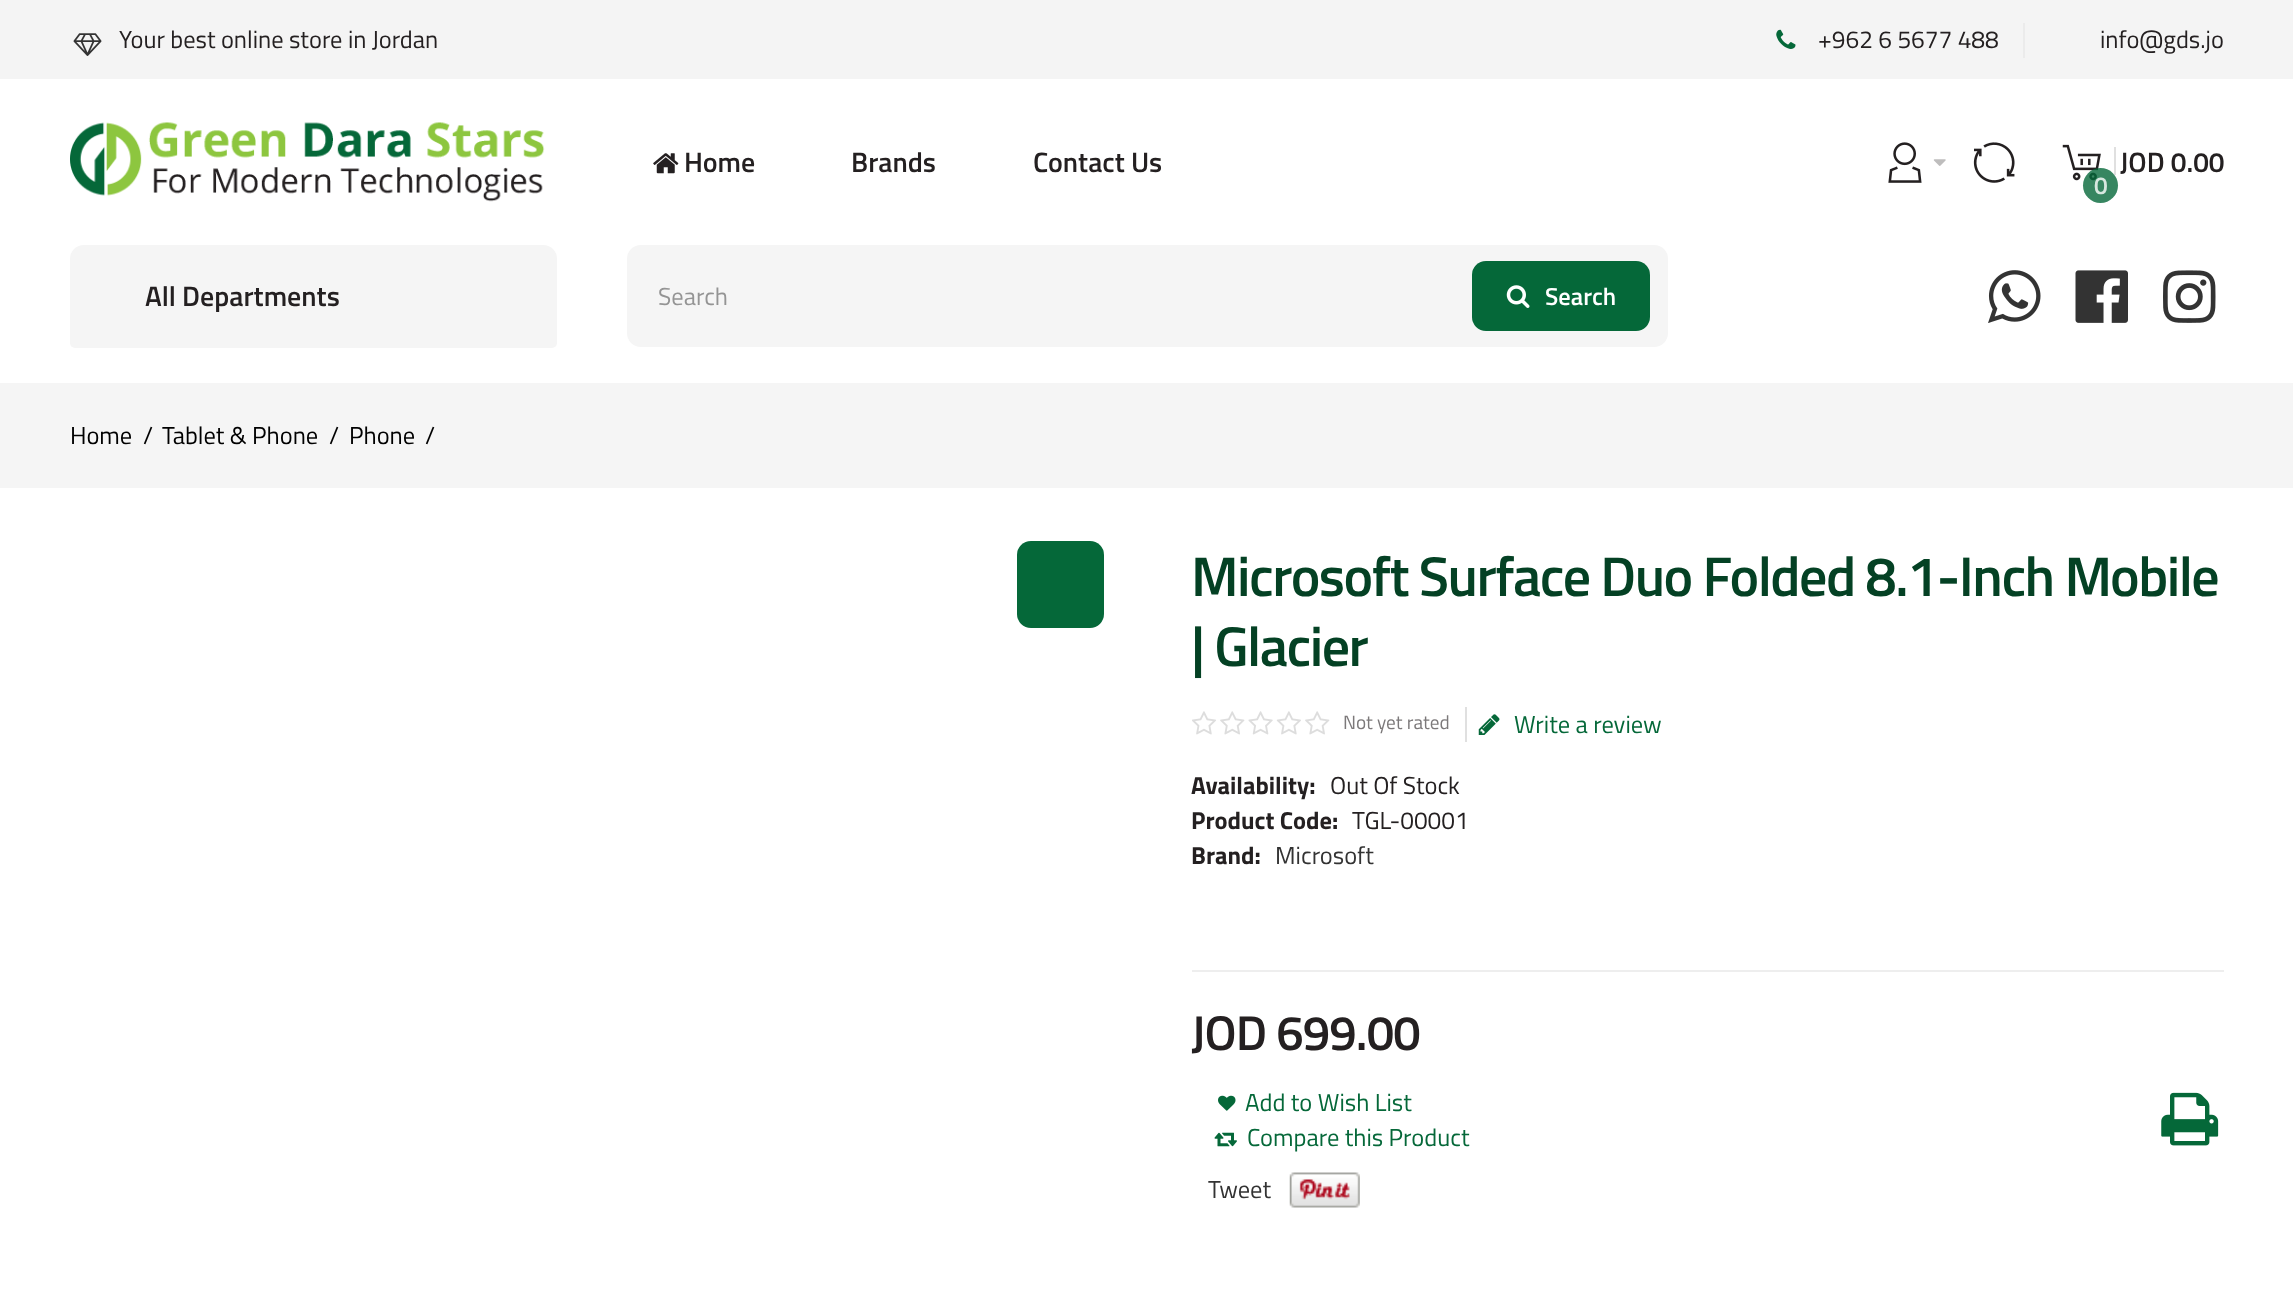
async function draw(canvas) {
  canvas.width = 2293
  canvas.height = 1302
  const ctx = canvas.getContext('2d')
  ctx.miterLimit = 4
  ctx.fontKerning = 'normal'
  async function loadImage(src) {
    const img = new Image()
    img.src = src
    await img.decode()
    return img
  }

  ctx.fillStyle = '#fff'
  ctx.fillRect(0, 0, 2293, 1302)
  ctx.fillStyle = '#f4f4f4'
  ctx.fillRect(0, 0, 2293, 79)
  ctx.drawImage(await loadImage('image0.png'), 73, 33, 29, 23)
  ctx.font = '24.5px Titillium Web'
  ctx.fillStyle = '#242021'
  ctx.fillText('Your best online store in Jordan', 119, 48)
  ctx.drawImage(await loadImage('image1.png'), 1776, 29, 20, 20)
  ctx.fillText('+962 6 5677 488', 1818, 48)
  ctx.fillStyle = '#ebebeb'
  ctx.fillRect(2023, 23, 2, 35)
  ctx.fillStyle = '#242021'
  ctx.fillText('info@gds.jo', 2100, 48)
  ctx.drawImage(await loadImage('image2.png'), 70, 122, 475, 80)
  ctx.drawImage(await loadImage('image3.png'), 653, 153, 26, 21)
  ctx.font = '600 28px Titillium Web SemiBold'
  ctx.fillText('Home', 684, 172)
  ctx.fillText('Brands', 851, 172)
  ctx.fillText('Contact Us', 1033, 172)
  ctx.drawImage(await loadImage('image4.png'), 1888, 142, 34, 41)
  ctx.drawImage(await loadImage('image5.png'), 1933, 159, 13, 7)
  ctx.drawImage(await loadImage('image6.png'), 1973, 142, 42, 41)
  ctx.drawImage(await loadImage('image7.png'), 2062, 144, 39, 37)
  ctx.fillStyle = '#e0e0e0'
  ctx.fillRect(2114, 147, 2, 28)
  ctx.fillStyle = '#242021'
  ctx.fillText('JOD 0.00', 2120, 172)
  ctx.fillStyle = '#056839cc'
  ctx.beginPath()
  ctx.arc(2100.5, 185.5, 17.5, 0, 2 * Math.PI)
  ctx.fill()
  ctx.font = '600 24.5px Titillium Web SemiBold'
  ctx.fillStyle = '#d7e7df'
  ctx.fillText('0', 2094, 194)
  ctx.fillStyle = '#f5f5f5'
  ctx.beginPath()
  ctx.roundRect(70, 245, 487, 103, [14, 14, 5, 5])
  ctx.fill()
  ctx.font = '600 28px Titillium Web SemiBold'
  ctx.fillStyle = '#242021'
  ctx.fillText('All Departments', 145, 306)
  ctx.fillStyle = '#f5f5f5'
  ctx.beginPath()
  ctx.roundRect(627, 245, 1041, 102, 14)
  ctx.fill()
  ctx.font = '24.5px Titillium Web'
  ctx.fillStyle = '#949494'
  ctx.fillText('Search', 658, 305)
  ctx.fillStyle = '#056839'
  ctx.beginPath()
  ctx.roundRect(1472, 261, 178, 70, 14)
  ctx.fill()
  ctx.drawImage(await loadImage('image8.png'), 1506, 285, 24, 23)
  ctx.font = '600 24.5px Titillium Web SemiBold'
  ctx.fillStyle = '#fff'
  ctx.fillText('Search', 1545, 305)
  ctx.drawImage(await loadImage('image9.png'), 1988, 270, 53, 53)
  ctx.drawImage(await loadImage('image10.png'), 2075, 270, 53, 53)
  ctx.drawImage(await loadImage('image11.png'), 2163, 270, 53, 53)
  ctx.fillStyle = '#f5f5f5'
  ctx.fillRect(0, 383, 2293, 105)
  ctx.font = '24.5px Titillium Web'
  ctx.fillStyle = '#000'
  ctx.fillText('Home', 70, 444)
  ctx.fillText('/', 143, 444)
  ctx.fillText('Tablet & Phone', 162, 444)
  ctx.fillText('/', 329, 444)
  ctx.fillText('Phone', 349, 444)
  ctx.fillText('/', 425, 444)
  ctx.fillStyle = '#056839'
  ctx.beginPath()
  ctx.roundRect(1017, 541, 87, 87, 14)
  ctx.fill()
  ctx.letterSpacing = '-1.55px'
  ctx.font = '600 56px Titillium Web SemiBold'
  ctx.fillStyle = '#044124'
  ctx.fillText('Microsoft Surface Duo Folded 8.1-Inch Mobile', 1191, 596)
  ctx.fillText('| Glacier', 1191, 666)
  ctx.drawImage(await loadImage('image12.png'), 1192, 711, 138, 24)
  ctx.letterSpacing = '0px'
  ctx.font = '19.25px Titillium Web'
  ctx.fillStyle = '#7c797a'
  ctx.fillText('Not yet rated', 1343, 729)
  ctx.fillStyle = '#e0e0e0'
  ctx.fillRect(1465, 707, 2, 35)
  ctx.drawImage(await loadImage('image13.png'), 1478, 714, 22, 21)
  ctx.font = '24.5px Titillium Web'
  ctx.fillStyle = '#056839'
  ctx.fillText('Write a review', 1514, 733)
  ctx.font = 'bold 24.5px Titillium Web'
  ctx.fillStyle = '#242021'
  ctx.fillText('Availability:', 1191, 794)
  ctx.font = '24.5px Titillium Web'
  ctx.fillText('Out Of Stock', 1330, 794)
  ctx.font = 'bold 24.5px Titillium Web'
  ctx.fillText('Product Code:', 1191, 829)
  ctx.font = '24.5px Titillium Web'
  ctx.fillText('TGL-00001', 1352, 829)
  ctx.font = 'bold 24.5px Titillium Web'
  ctx.fillText('Brand:', 1191, 864)
  ctx.font = '24.5px Titillium Web'
  ctx.fillStyle = '#333'
  ctx.fillText('Microsoft', 1275, 864)
  ctx.fillStyle = '#eee'
  ctx.fillRect(1192, 970, 1032, 2)
  ctx.letterSpacing = '-0.9px'
  ctx.font = '600 49px Titillium Web SemiBold'
  ctx.fillStyle = '#242021'
  ctx.fillText('JOD 699.00', 1191, 1050)
  ctx.drawImage(await loadImage('image14.png'), 1218, 1095, 18, 16)
  ctx.letterSpacing = '0px'
  ctx.font = '24.5px Titillium Web'
  ctx.fillStyle = '#056839'
  ctx.fillText('Add to Wish List', 1245, 1111)
  ctx.drawImage(await loadImage('image15.png'), 1214, 1132, 23, 15)
  ctx.fillText('Compare this Product', 1247, 1146)
  ctx.drawImage(await loadImage('image16.png'), 2161, 1092, 58, 54)
  ctx.fillStyle = '#333'
  ctx.fillText('Tweet', 1208, 1198)
  ctx.drawImage(await loadImage('image17.png'), 1289, 1172, 71, 36)
}

draw(document.querySelector('canvas'))
